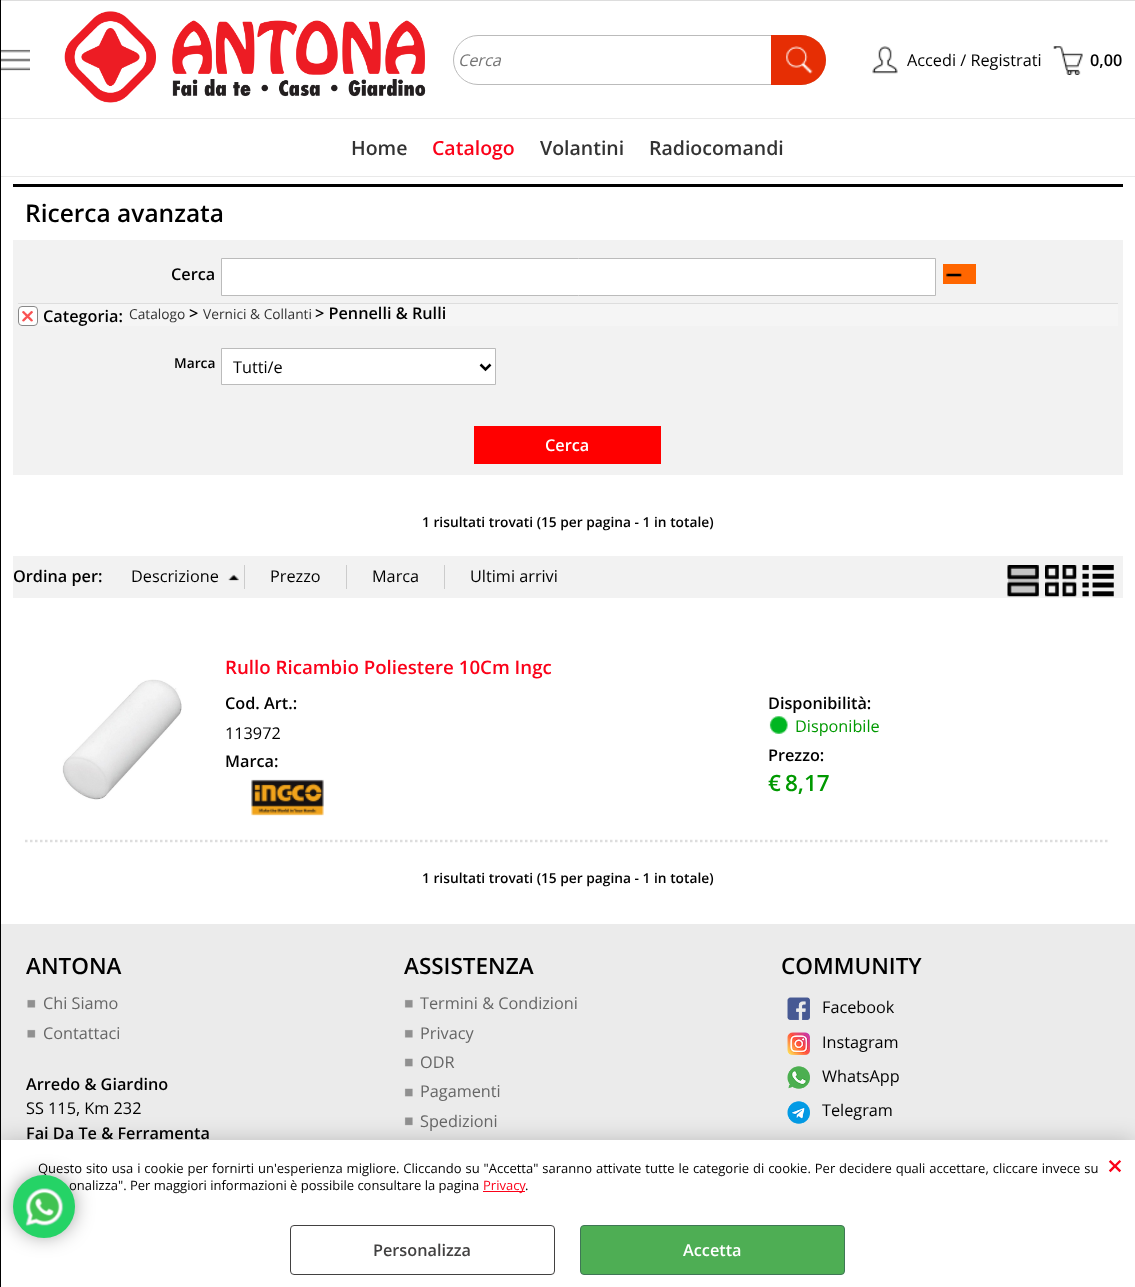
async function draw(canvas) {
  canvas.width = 1135
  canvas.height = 1287
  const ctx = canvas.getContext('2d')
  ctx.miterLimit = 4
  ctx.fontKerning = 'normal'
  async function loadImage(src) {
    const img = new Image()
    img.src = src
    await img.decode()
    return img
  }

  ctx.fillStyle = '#fff'
  ctx.fillRect(0, 0, 1135, 1287)
  ctx.fillStyle = '#ddd'
  ctx.fillRect(0, 0, 1135, 1)
  ctx.fillStyle = '#e9e9e9'
  ctx.fillRect(0, 118, 1135, 1)
  ctx.fillRect(0, 176, 1135, 1)
  ctx.fillStyle = '#ebebeb'
  ctx.fillRect(1, 924, 1134, 216)
  ctx.drawImage(await loadImage('image17.png'), 404, 1117, 9, 9)
  ctx.drawImage(await loadImage('image21.png'), 787, 1101, 23, 23)
  ctx.fillStyle = '#00000033'
  ctx.filter = 'blur(11px)'
  ctx.beginPath()
  ctx.rect(0, 1140, 1135, 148)
  ctx.fill()
  ctx.filter = 'none'
  ctx.fillStyle = '#fff'
  ctx.fillRect(1, 1140, 1134, 147)
  ctx.fillStyle = '#000000b3'
  ctx.filter = 'blur(12.5px)'
  ctx.beginPath()
  ctx.roundRect(19, 1181, 50, 50, 25)
  ctx.fill()
  ctx.filter = 'none'
  ctx.fillStyle = '#000'
  ctx.fillRect(0, 0, 1, 1287)
  ctx.drawImage(await loadImage('image0.png'), 1, 49, 29, 22)
  ctx.drawImage(await loadImage('image1.png'), 64, 11, 362, 92)
  ctx.beginPath()
  ctx.roundRect(453.5, 35.5, 372, 49, 24.5)
  ctx.strokeStyle = '#bbb'
  ctx.stroke()
  ctx.font = 'italic 16.25px Open Sans'
  ctx.fillStyle = '#757575'
  ctx.fillText('Cerca', 458, 66)
  ctx.fillStyle = '#e62e04'
  ctx.beginPath()
  ctx.roundRect(771, 35, 55, 50, [0, 25, 25, 0])
  ctx.fill()
  ctx.drawImage(await loadImage('image2.png'), 786, 46, 27, 28)
  ctx.drawImage(await loadImage('image3.png'), 872, 46, 26, 28)
  ctx.font = '16.25px Open Sans'
  ctx.fillStyle = '#000'
  ctx.fillText('Accedi / Registrati', 907, 66)
  ctx.drawImage(await loadImage('image4.png'), 1053, 46, 30, 29)
  ctx.font = '600 16.25px Open Sans'
  ctx.fillText('0,00', 1090, 66)
  ctx.font = '600 19.5px Open Sans'
  ctx.fillStyle = '#333'
  ctx.fillText('Home', 351, 155)
  ctx.fillStyle = '#fb0219'
  ctx.fillText('Catalogo', 432, 155)
  ctx.fillStyle = '#333'
  ctx.fillText('Volantini', 540, 155)
  ctx.fillText('Radiocomandi', 649, 155)
  ctx.fillStyle = '#f2f2f2'
  ctx.fillRect(13, 240, 1110, 235)
  ctx.fillStyle = '#000'
  ctx.fillRect(13, 184, 1110, 3)
  ctx.font = '600 24.5px Open Sans'
  ctx.fillText('Ricerca avanzata', 25, 222)
  ctx.font = '600 16.25px Open Sans'
  ctx.fillText('Cerca', 171, 280)
  ctx.fillStyle = '#fff'
  ctx.beginPath()
  ctx.rect(221.5, 258.5, 714, 37)
  ctx.fill()
  ctx.stroke()
  ctx.fillStyle = '#f60'
  ctx.fillRect(943, 264, 33, 20)
  ctx.drawImage(await loadImage('image5.png'), 946, 273, 16, 4)
  ctx.fillStyle = '#ddd'
  ctx.fillRect(18, 303, 1100, 1)
  ctx.fillStyle = '#f5f5f5'
  ctx.fillRect(18, 304, 1100, 22)
  ctx.fillStyle = '#fff'
  ctx.beginPath()
  ctx.roundRect(18, 306, 20, 20, 4)
  ctx.fill()
  ctx.drawImage(await loadImage('image6.png'), 22, 311, 11, 11)
  ctx.beginPath()
  ctx.roundRect(18.5, 306.5, 19, 19, 3.5)
  ctx.strokeStyle = '#888'
  ctx.stroke()
  ctx.fillStyle = '#000'
  ctx.fillText('Categoria:', 43, 322)
  ctx.font = '13.75px Open Sans'
  ctx.fillStyle = '#333'
  ctx.fillText('Catalogo', 129, 319)
  ctx.font = '600 16.25px Open Sans'
  ctx.fillStyle = '#000'
  ctx.fillText('>', 189, 319)
  ctx.font = '13.75px Open Sans'
  ctx.fillStyle = '#333'
  ctx.fillText('Vernici & Collanti', 203, 319)
  ctx.font = '600 16.25px Open Sans'
  ctx.fillStyle = '#000'
  ctx.fillText('> Pennelli & Rulli', 315, 319)
  ctx.font = '600 13.75px Open Sans'
  ctx.fillText('Marca', 174, 368)
  ctx.fillStyle = '#fff'
  ctx.beginPath()
  ctx.rect(221.5, 348.5, 274, 36)
  ctx.fill()
  ctx.strokeStyle = '#bbb'
  ctx.stroke()
  ctx.beginPath()
  ctx.moveTo(480.5, 364.5)
  ctx.lineTo(485.5, 369.5)
  ctx.lineTo(490.5, 364.5)
  ctx.strokeStyle = '#000'
  ctx.lineWidth = 2.5
  ctx.stroke()
  ctx.font = '16.25px Open Sans'
  ctx.fillStyle = '#000'
  ctx.fillText('Tutti/e', 233, 373)
  ctx.fillStyle = '#f00'
  ctx.fillRect(474, 426, 187, 38)
  ctx.font = '600 16.25px Open Sans'
  ctx.fillStyle = '#fff'
  ctx.fillText('Cerca', 545, 451)
  ctx.font = '600 13.75px Open Sans'
  ctx.fillStyle = '#000'
  ctx.fillText('1 risultati trovati (15 per pagina - 1 in totale)', 422, 527)
  ctx.fillStyle = '#f2f2f2'
  ctx.fillRect(13, 556, 1110, 42)
  ctx.font = '600 16.25px Open Sans'
  ctx.fillStyle = '#000'
  ctx.fillText('Ordina per:', 13, 582)
  ctx.drawImage(await loadImage('image7.png'), 228, 574, 11, 7)
  ctx.fillStyle = '#ccc'
  ctx.fillRect(244, 565, 1, 24)
  ctx.font = '16.25px Open Sans'
  ctx.fillStyle = '#000'
  ctx.fillText('Descrizione', 131, 582)
  ctx.fillStyle = '#ccc'
  ctx.fillRect(346, 565, 1, 24)
  ctx.fillStyle = '#000'
  ctx.fillText('Prezzo', 270, 582)
  ctx.fillStyle = '#ccc'
  ctx.fillRect(444, 565, 1, 24)
  ctx.fillStyle = '#000'
  ctx.fillText('Marca', 372, 582)
  ctx.fillText('Ultimi arrivi', 470, 582)
  ctx.fillStyle = '#c6c6c6'
  ctx.fillRect(1008, 565, 31, 31)
  ctx.drawImage(await loadImage('image8.png'), 1007, 565, 32, 32)
  ctx.drawImage(await loadImage('image9.png'), 1045, 565, 32, 32)
  ctx.drawImage(await loadImage('image10.png'), 1082, 565, 32, 32)
  ctx.beginPath()
  ctx.moveTo(25, 841)
  ctx.lineTo(1110, 841)
  ctx.strokeStyle = '#ddd'
  ctx.setLineDash([2.5, 2.5])
  ctx.stroke()
  ctx.font = '600 18.7px Open Sans'
  ctx.fillStyle = '#fb0219'
  ctx.fillText('Rullo Ricambio Poliestere 10Cm Ingc', 225, 674)
  ctx.drawImage(await loadImage('image11.png'), 62, 679, 120, 121)
  ctx.font = '600 16.25px Open Sans'
  ctx.fillStyle = '#000'
  ctx.fillText('Cod. Art.:', 225, 709)
  ctx.font = '16.25px Open Sans'
  ctx.fillText('113972', 225, 739)
  ctx.font = '600 16.25px Open Sans'
  ctx.fillText('Marca:', 225, 767)
  ctx.drawImage(await loadImage('image12.png'), 251, 779, 73, 37)
  ctx.fillText('Disponibilità:', 768, 709)
  ctx.drawImage(await loadImage('image13.png'), 769, 716, 19, 18)
  ctx.font = '16.25px Open Sans'
  ctx.fillStyle = '#090'
  ctx.fillText('Disponibile', 795, 732)
  ctx.font = '600 16.25px Open Sans'
  ctx.fillStyle = '#000'
  ctx.fillText('Prezzo:', 768, 761)
  ctx.font = '600 22.5px Open Sans'
  ctx.fillStyle = '#090'
  ctx.fillText('€', 768, 791)
  ctx.fillText('8,17', 785, 791)
  ctx.font = '600 13.75px Open Sans'
  ctx.fillStyle = '#000'
  ctx.fillText('1 risultati trovati (15 per pagina - 1 in totale)', 422, 883)
  ctx.font = '600 22.5px Open Sans'
  ctx.fillText('ANTONA', 26, 974)
  ctx.drawImage(await loadImage('image14.png'), 27, 999, 9, 9)
  ctx.font = '16.25px Open Sans'
  ctx.fillStyle = '#666'
  ctx.fillText('Chi Siamo', 43, 1009)
  ctx.drawImage(await loadImage('image14.png'), 27, 1029, 9, 9)
  ctx.fillText('Contattaci', 43, 1039)
  ctx.font = '600 16.25px Open Sans'
  ctx.fillStyle = '#000'
  ctx.fillText('Arredo & Giardino', 26, 1090)
  ctx.font = '16.25px Open Sans'
  ctx.fillText('SS 115, Km 232', 26, 1114)
  ctx.font = '600 16.25px Open Sans'
  ctx.fillText('Fai Da Te & Ferramenta', 26, 1139)
  ctx.font = '600 22.5px Open Sans'
  ctx.fillText('ASSISTENZA', 404, 974)
  ctx.drawImage(await loadImage('image15.png'), 404, 999, 9, 9)
  ctx.font = '16.25px Open Sans'
  ctx.fillStyle = '#666'
  ctx.fillText('Termini & Condizioni', 420, 1009)
  ctx.drawImage(await loadImage('image15.png'), 404, 1029, 9, 9)
  ctx.fillText('Privacy', 420, 1039)
  ctx.drawImage(await loadImage('image16.png'), 404, 1058, 9, 9)
  ctx.fillText('ODR', 420, 1068)
  ctx.drawImage(await loadImage('image16.png'), 404, 1088, 9, 9)
  ctx.fillText('Pagamenti', 420, 1097)
  ctx.fillText('Spedizioni', 420, 1127)
  ctx.font = '600 22.5px Open Sans'
  ctx.fillStyle = '#000'
  ctx.fillText('COMMUNITY', 781, 974)
  ctx.drawImage(await loadImage('image18.png'), 787, 997, 23, 23)
  ctx.font = '16.25px Open Sans'
  ctx.fillText('Facebook', 822, 1013)
  ctx.drawImage(await loadImage('image19.png'), 787, 1032, 23, 23)
  ctx.fillText('Instagram', 822, 1048)
  ctx.drawImage(await loadImage('image20.png'), 787, 1066, 23, 23)
  ctx.fillText('WhatsApp', 822, 1082)
  ctx.fillText('Telegram', 822, 1116)
  ctx.wordSpacing = '0.55px'
  ctx.font = '13px Open Sans'
  ctx.fillText('Questo sito usa i cookie per fornirti un\'esperienza migliore. Cliccando su "Accetta" saranno attivate tutte le categorie di cookie. Per decidere quali accettare, cliccare invece su', 38, 1173)
  ctx.wordSpacing = '0px'
  ctx.fillText('onalizza". Per maggiori informazioni è possibile consultare la pagina', 69, 1190)
  ctx.fillStyle = '#25d366'
  ctx.beginPath()
  ctx.roundRect(13, 1175, 62, 63, 31)
  ctx.fill()
  ctx.drawImage(await loadImage('image22.png'), 25, 1188, 39, 39)
  ctx.fillStyle = '#fb0219'
  ctx.fillRect(483, 1191, 42, 1)
  ctx.fillText('Privacy', 483, 1190)
  ctx.fillStyle = '#000'
  ctx.fillText('.', 525, 1190)
  ctx.font = '600 28px Open Sans'
  ctx.fillStyle = '#fb0219'
  ctx.fillText('×', 1107, 1176)
  ctx.beginPath()
  ctx.roundRect(290.5, 1225.5, 264, 49, 3.5)
  ctx.strokeStyle = '#424141'
  ctx.lineWidth = 1
  ctx.setLineDash([])
  ctx.stroke()
  ctx.font = '600 16.25px Open Sans'
  ctx.fillStyle = '#424141'
  ctx.fillText('Personalizza', 373, 1256)
  ctx.fillStyle = '#4eae54'
  ctx.beginPath()
  ctx.roundRect(580.5, 1225.5, 264, 49, 3.5)
  ctx.fill()
  ctx.strokeStyle = '#3f7755'
  ctx.stroke()
  ctx.fillStyle = '#fff'
  ctx.fillText('Accetta', 683, 1256)
}

draw(document.querySelector('canvas'))
